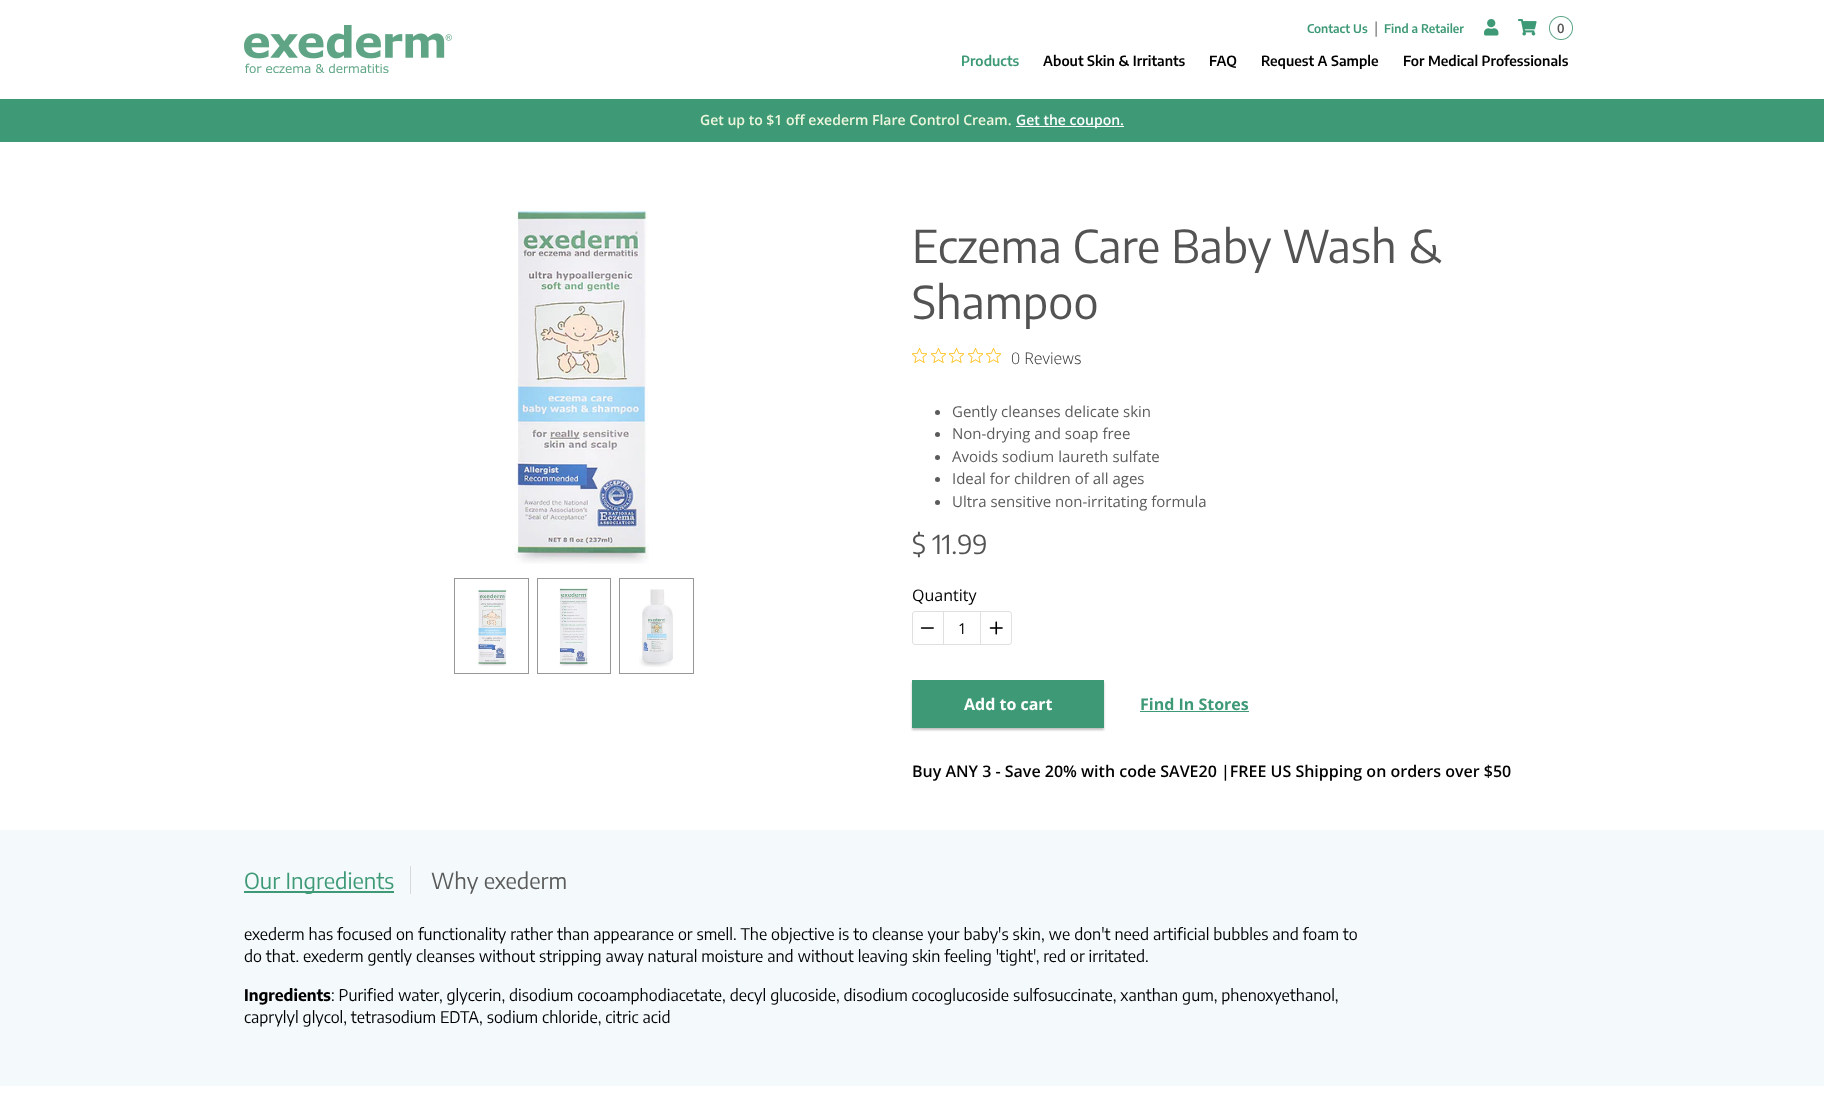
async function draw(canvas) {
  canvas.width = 1824
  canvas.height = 1094
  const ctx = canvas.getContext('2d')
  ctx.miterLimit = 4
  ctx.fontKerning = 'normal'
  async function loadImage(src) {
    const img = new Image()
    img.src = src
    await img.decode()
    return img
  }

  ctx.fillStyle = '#fff'
  ctx.fillRect(0, 0, 1824, 1094)
  ctx.drawImage(await loadImage('image0.png'), 244, 25, 208, 48)
  ctx.font = '600 12px Encode Sans Condensed'
  ctx.fillStyle = '#3e9a76'
  ctx.fillText('Contact Us', 1307, 33)
  ctx.font = '15px Open Sans'
  ctx.fillStyle = '#5b5b5b'
  ctx.fillText('|', 1372, 33)
  ctx.font = '600 12px Encode Sans Condensed'
  ctx.fillStyle = '#3e9a76'
  ctx.fillText('Find a Retailer', 1384, 33)
  ctx.drawImage(await loadImage('image1.png'), 1484, 19, 15, 17)
  ctx.drawImage(await loadImage('image2.png'), 1518, 19, 19, 17)
  ctx.drawImage(await loadImage('image3.png'), 1549, 16, 24, 24)
  ctx.font = '600 13px Open Sans'
  ctx.fillStyle = '#535353'
  ctx.fillText('0', 1557, 33)
  ctx.font = '600 14px Encode Sans Condensed'
  ctx.fillStyle = '#3e9a76'
  ctx.fillText('Products', 961, 66)
  ctx.fillStyle = '#000'
  ctx.fillText('About Skin & Irritants', 1043, 66)
  ctx.fillText('FAQ', 1209, 66)
  ctx.fillText('Request A Sample', 1261, 66)
  ctx.fillText('For Medical Professionals', 1403, 66)
  ctx.fillStyle = '#3e9a76'
  ctx.fillRect(0, 99, 1824, 43)
  ctx.font = '600 14px Open Sans'
  ctx.fillStyle = '#edf6dc'
  ctx.fillText('Get up to $1 off exederm Flare Control Cream.', 700, 125)
  ctx.fillStyle = '#fff'
  ctx.fillRect(1016, 126, 108, 1)
  ctx.fillText('Get the coupon.', 1016, 125)
  ctx.drawImage(await loadImage('image4.png'), 514, 210, 135, 354)
  ctx.strokeStyle = '#979797'
  ctx.strokeRect(454.5, 578.5, 74, 95)
  ctx.drawImage(await loadImage('image5.png'), 477, 589, 30, 77)
  ctx.strokeRect(537.5, 578.5, 73, 95)
  ctx.drawImage(await loadImage('image6.png'), 559, 588, 30, 79)
  ctx.strokeRect(619.5, 578.5, 74, 95)
  ctx.drawImage(await loadImage('image7.png'), 639, 589, 34, 78)
  ctx.font = '45px Encode Sans Condensed'
  ctx.fillStyle = '#535353'
  ctx.fillText('Eczema Care Baby Wash &', 912, 263)
  ctx.fillText('Shampoo', 912, 319)
  ctx.drawImage(await loadImage('image8.png'), 912, 348, 15, 15)
  ctx.drawImage(await loadImage('image8.png'), 931, 348, 15, 15)
  ctx.drawImage(await loadImage('image8.png'), 949, 348, 15, 15)
  ctx.drawImage(await loadImage('image8.png'), 968, 348, 15, 15)
  ctx.drawImage(await loadImage('image8.png'), 986, 348, 15, 15)
  ctx.font = '300 16px Open Sans'
  ctx.fillStyle = '#2c2c2c'
  ctx.fillText('0 Reviews', 1011, 364)
  ctx.fillStyle = '#5b5b5b'
  ctx.beginPath()
  ctx.arc(937.5, 412.5, 2.5, 0, 2 * Math.PI)
  ctx.fill()
  ctx.font = '15px Open Sans'
  ctx.fillText('Gently cleanses delicate skin', 952, 417)
  ctx.beginPath()
  ctx.arc(937.5, 434.5, 2.5, 0, 2 * Math.PI)
  ctx.fill()
  ctx.fillText('Non-drying and soap free', 952, 439)
  ctx.beginPath()
  ctx.arc(937.5, 457.5, 2.5, 0, 2 * Math.PI)
  ctx.fill()
  ctx.fillText('Avoids sodium laureth sulfate', 952, 462)
  ctx.beginPath()
  ctx.arc(937.5, 479.5, 2.5, 0, 2 * Math.PI)
  ctx.fill()
  ctx.fillText('Ideal for children of all ages', 952, 484)
  ctx.beginPath()
  ctx.arc(937.5, 502.5, 2.5, 0, 2 * Math.PI)
  ctx.fill()
  ctx.fillText('Ultra sensitive non-irritating formula', 952, 507)
  ctx.font = '26px Encode Sans Condensed'
  ctx.fillStyle = '#535353'
  ctx.fillText('$ 11.99', 912, 554)
  ctx.font = '16px Open Sans'
  ctx.fillStyle = '#000'
  ctx.fillText('Quantity', 912, 601)
  ctx.beginPath()
  ctx.roundRect(912.5, 611.5, 99, 33, 2.5)
  ctx.strokeStyle = '#e0e0e0'
  ctx.stroke()
  ctx.fillStyle = '#e0e0e0'
  ctx.fillRect(943, 611, 1, 34)
  ctx.drawImage(await loadImage('image9.png'), 920, 627, 14, 2)
  ctx.font = '15px Open Sans'
  ctx.fillStyle = '#000'
  ctx.fillText('1', 958, 634)
  ctx.fillStyle = '#e0e0e0'
  ctx.fillRect(980, 611, 1, 34)
  ctx.drawImage(await loadImage('image10.png'), 989, 621, 14, 14)
  ctx.fillStyle = '#00000040'
  ctx.filter = 'blur(1px)'
  ctx.beginPath()
  ctx.rect(912, 682, 192, 48)
  ctx.fill()
  ctx.filter = 'none'
  ctx.fillStyle = '#3e9a76'
  ctx.fillRect(912, 680, 192, 48)
  ctx.font = 'bold 16px Open Sans'
  ctx.fillStyle = '#fff'
  ctx.fillText('Add to cart', 964, 710)
  ctx.fillStyle = '#3e9a76'
  ctx.fillText('Find In Stores', 1140, 710)
  ctx.fillRect(1140, 711, 109, 1)
  ctx.font = '600 16px Open Sans'
  ctx.fillStyle = '#000'
  ctx.fillText('Buy ANY 3 - Save 20% with code SAVE20 |FREE US Shipping on orders over $50', 912, 777)
  ctx.fillStyle = '#f4fafc'
  ctx.fillRect(0, 830, 1824, 256)
  ctx.fillStyle = '#d8d8d8'
  ctx.fillRect(410, 866, 1, 28)
  ctx.fillStyle = '#3e9a76'
  ctx.fillRect(244, 891, 150, 2)
  ctx.font = '22px Encode Sans Condensed'
  ctx.fillText('Our Ingredients', 244, 889)
  ctx.fillStyle = '#5b5b5b'
  ctx.fillText('Why exederm', 431, 889)
  ctx.font = '16px Encode Sans Condensed'
  ctx.fillStyle = '#000'
  ctx.fillText('exederm has focused on functionality rather than appearance or smell. The objective is to cleanse your baby\'s skin, we don\'t need artificial bubbles and foam to', 244, 940)
  ctx.fillText('do that. exederm gently cleanses without stripping away natural moisture and without leaving skin feeling \'tight\', red or irritated.', 244, 962)
  ctx.font = 'bold 16px Encode Sans Condensed'
  ctx.fillText('Ingredients', 244, 1001)
  ctx.font = '16px Encode Sans Condensed'
  ctx.fillText(': Purified water, glycerin, disodium cocoamphodiacetate, decyl glucoside, disodium cocoglucoside sulfosuccinate, xanthan gum, phenoxyethanol,', 331, 1001)
  ctx.fillText('caprylyl glycol, tetrasodium EDTA, sodium chloride, citric acid', 244, 1023)
}

draw(document.querySelector('canvas'))
